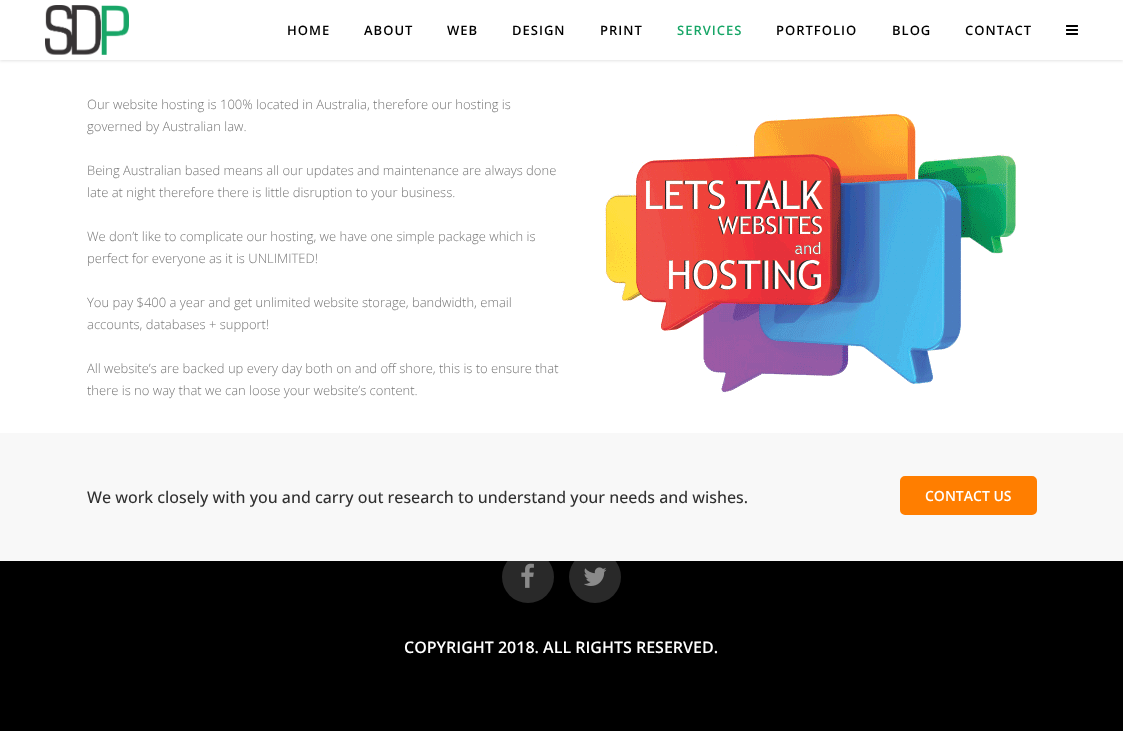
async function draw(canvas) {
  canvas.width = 1123
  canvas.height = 731
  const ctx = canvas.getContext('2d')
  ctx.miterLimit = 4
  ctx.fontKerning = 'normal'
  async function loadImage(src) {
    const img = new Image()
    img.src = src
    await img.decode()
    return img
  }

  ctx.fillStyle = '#000'
  ctx.fillRect(0, 0, 1123, 731)
  ctx.fillStyle = '#fff'
  ctx.fillRect(0, 60, 1123, 373)
  ctx.fillStyle = '#0000001c'
  ctx.filter = 'blur(1.5px)'
  ctx.beginPath()
  ctx.rect(0, 1, 1123, 60)
  ctx.fill()
  ctx.filter = 'none'
  ctx.fillStyle = '#fff'
  ctx.fillRect(0, 0, 1123, 60)
  ctx.drawImage(await loadImage('image0.png'), 45, 5, 84, 50)
  ctx.letterSpacing = '1px'
  ctx.font = '600 13px Open Sans'
  ctx.fillStyle = '#000'
  ctx.fillText('HOME', 287, 35)
  ctx.fillText('ABOUT', 364, 35)
  ctx.fillText('WEB', 447, 35)
  ctx.fillText('DESIGN', 512, 35)
  ctx.fillText('PRINT', 600, 35)
  ctx.fillStyle = '#18a667'
  ctx.fillText('SERVICES', 677, 35)
  ctx.fillStyle = '#000'
  ctx.fillText('PORTFOLIO', 776, 35)
  ctx.fillText('BLOG', 892, 35)
  ctx.fillText('CONTACT', 965, 35)
  ctx.drawImage(await loadImage('image1.png'), 1066, 25, 12, 10)
  ctx.letterSpacing = '0px'
  ctx.font = '300 13px Open Sans'
  ctx.fillStyle = '#777'
  ctx.fillText('Our website hosting is 100% located in Australia, therefore our hosting is', 87, 109)
  ctx.fillText('governed by Australian law.', 87, 131)
  ctx.drawImage(await loadImage('image2.png'), 605, 113, 412, 285)
  ctx.fillText('Being Australian based means all our updates and maintenance are always done', 87, 175)
  ctx.fillText('late at night therefore there is little disruption to your business.', 87, 197)
  ctx.fillText('We don’t like to complicate our hosting, we have one simple package which is', 87, 241)
  ctx.fillText('perfect for everyone as it is UNLIMITED!', 87, 263)
  ctx.fillText('You pay $400 a year and get unlimited website storage, bandwidth, email', 87, 307)
  ctx.fillText('accounts, databases + support!', 87, 329)
  ctx.fillText('All website’s are backed up every day both on and off shore, this is to ensure that', 87, 373)
  ctx.fillText('there is no way that we can loose your website’s content.', 87, 395)
  ctx.fillStyle = '#292929'
  ctx.beginPath()
  ctx.arc(528, 577, 26, 0, 2 * Math.PI)
  ctx.fill()
  ctx.beginPath()
  ctx.arc(595, 577, 26, 0, 2 * Math.PI)
  ctx.fill()
  ctx.fillStyle = '#f8f8f8'
  ctx.fillRect(0, 433, 1123, 128)
  ctx.font = '500 16px Open Sans'
  ctx.fillStyle = '#303030'
  ctx.fillText('We work closely with you and carry out research to understand your needs and wishes.', 87, 503)
  ctx.fillStyle = '#ff7e00'
  ctx.beginPath()
  ctx.roundRect(901, 477, 135, 37, 4)
  ctx.fill()
  ctx.strokeStyle = '#ff7e00'
  ctx.lineWidth = 2
  ctx.stroke()
  ctx.font = '600 14px Open Sans'
  ctx.fillStyle = '#fff'
  ctx.fillText('CONTACT US', 925, 501)
  ctx.drawImage(await loadImage('image3.png'), 521, 563, 13, 25)
  ctx.drawImage(await loadImage('image4.png'), 584, 567, 23, 19)
  ctx.font = '600 16px Open Sans'
  ctx.fillText('COPYRIGHT 2018. ALL RIGHTS RESERVED.', 404, 653)
}

draw(document.querySelector('canvas'))
